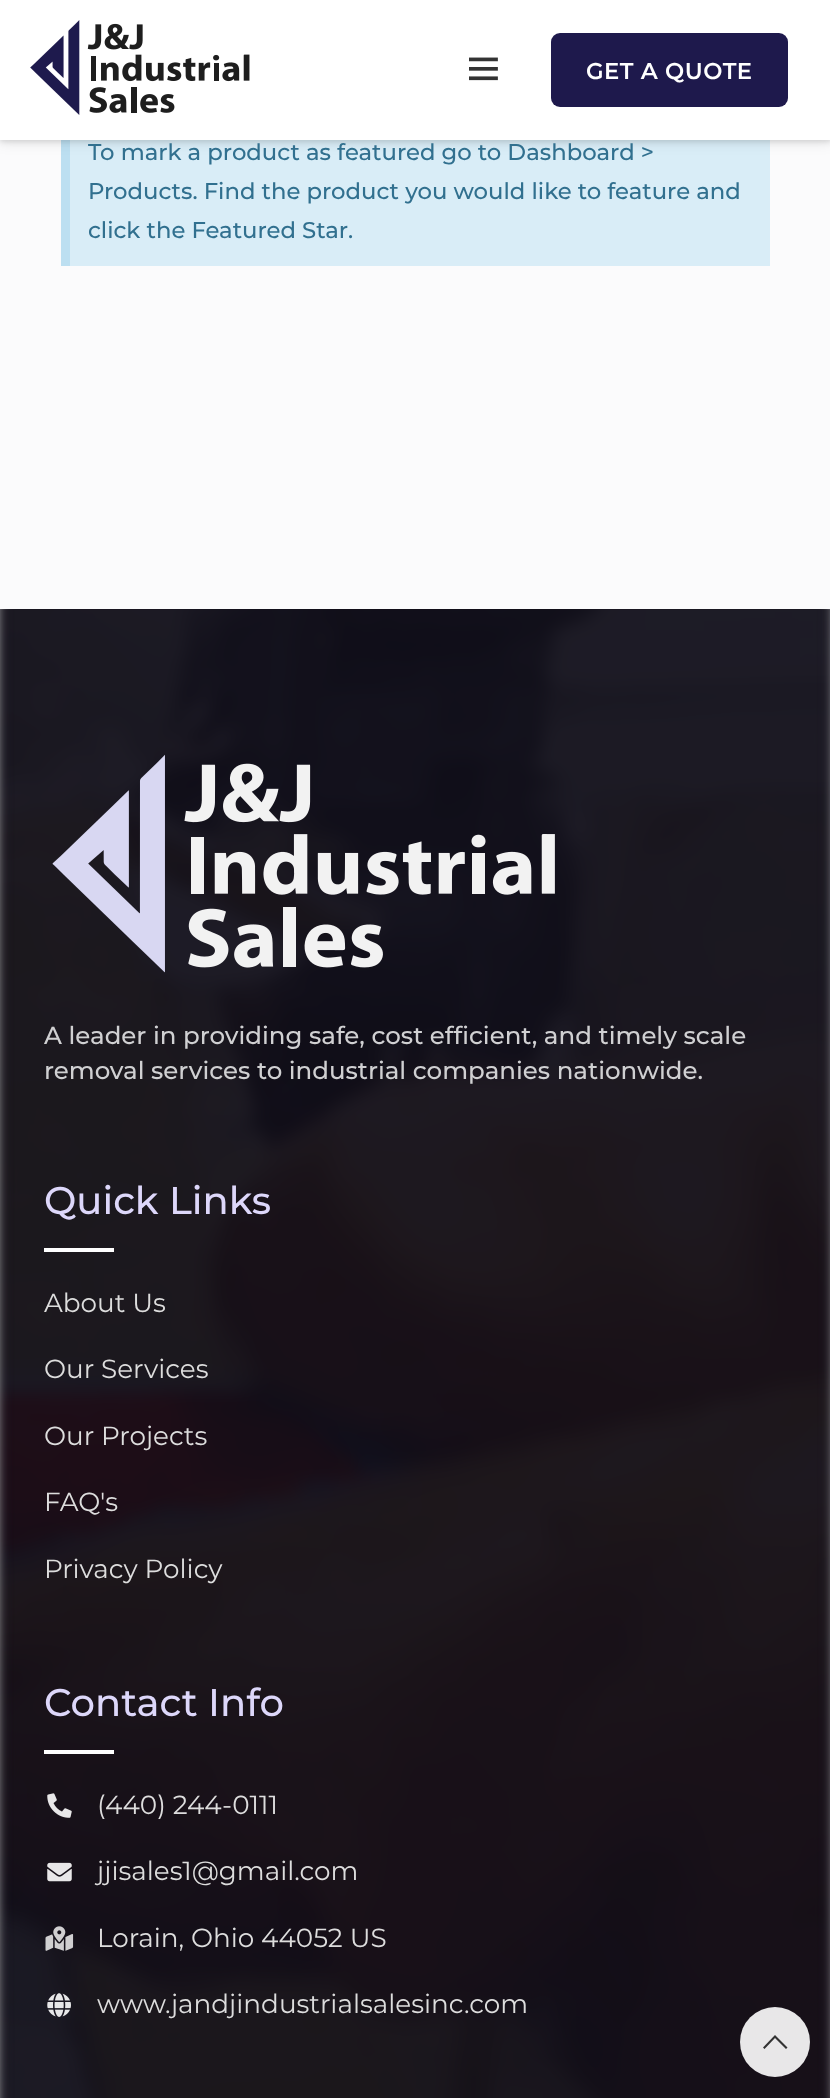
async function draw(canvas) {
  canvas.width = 830
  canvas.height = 2098
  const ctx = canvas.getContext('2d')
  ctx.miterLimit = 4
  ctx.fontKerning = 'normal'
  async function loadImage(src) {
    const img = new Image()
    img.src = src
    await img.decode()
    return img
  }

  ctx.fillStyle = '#fff'
  ctx.fillRect(0, 0, 830, 2098)
  ctx.fillStyle = '#fbfbfc'
  ctx.fillRect(0, 140, 830, 469)
  ctx.fillStyle = '#d9edf7'
  ctx.fillRect(70, 140, 700, 126)
  ctx.fillStyle = '#bcdff1'
  ctx.fillRect(61, 140, 9, 126)
  ctx.fillStyle = '#0000001a'
  ctx.filter = 'blur(2.5px)'
  ctx.beginPath()
  ctx.rect(0, 2, 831, 140)
  ctx.fill()
  ctx.filter = 'none'
  ctx.filter = 'blur(7px)'
  ctx.beginPath()
  ctx.rect(0, 2, 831, 140)
  ctx.fill()
  ctx.filter = 'none'
  ctx.fillStyle = '#fff'
  ctx.fillRect(0, 0, 830, 140)
  ctx.drawImage(await loadImage('image0.png'), 30, 20, 220, 95)
  ctx.drawImage(await loadImage('image1.png'), 469, 57, 29, 24)
  ctx.fillStyle = '#1e194c'
  ctx.beginPath()
  ctx.roundRect(551, 33, 237, 74, 9)
  ctx.fill()
  ctx.letterSpacing = '0.5px'
  ctx.font = '600 22.75px Montserrat'
  ctx.fillStyle = '#fff'
  ctx.fillText('GET A QUOTE', 586, 79)
  ctx.letterSpacing = '0px'
  ctx.font = '500 22.75px Montserrat'
  ctx.fillStyle = '#31708f'
  ctx.fillText('To mark a product as featured go to Dashboard >', 88, 160)
  ctx.fillText('Products. Find the product you would like to feature and', 88, 199)
  ctx.fillText('click the Featured Star.', 88, 238)
  ctx.save()
  ctx.beginPath()
  ctx.rect(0, 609, 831, 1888)
  ctx.clip()
  ctx.fillStyle = '#100e19'
  ctx.filter = 'blur(7.5px)'
  ctx.beginPath()
  ctx.rect(0, 334, 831, 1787)
  ctx.fill()
  ctx.filter = 'none'
  ctx.restore()
  ctx.drawImage(await loadImage('image2.png'), 0, 609, 830, 1489)
  ctx.drawImage(await loadImage('image3.png'), 52, 754, 503, 219)
  ctx.font = '500 24.5px Montserrat'
  ctx.fillStyle = '#d0d0d2'
  ctx.fillText('A leader in providing safe, cost efficient, and timely scale', 44, 1044)
  ctx.fillText('removal services to industrial companies nationwide.', 44, 1079)
  ctx.font = '500 38.5px Montserrat'
  ctx.fillStyle = '#ddd7fa'
  ctx.fillText('Quick Links', 44, 1214)
  ctx.fillStyle = '#fff'
  ctx.fillRect(44, 1248, 70, 4)
  ctx.font = '26.25px Montserrat'
  ctx.fillStyle = '#ddd'
  ctx.fillText('About Us', 44, 1312)
  ctx.fillText('Our Services', 44, 1378)
  ctx.fillText('Our Projects', 44, 1445)
  ctx.fillText('FAQ\'s', 44, 1511)
  ctx.fillText('Privacy Policy', 44, 1578)
  ctx.font = '500 38.5px Montserrat'
  ctx.fillStyle = '#ddd7fa'
  ctx.fillText('Contact Info', 44, 1716)
  ctx.fillStyle = '#fff'
  ctx.fillRect(44, 1750, 70, 4)
  ctx.drawImage(await loadImage('image4.png'), 47, 1793, 25, 25)
  ctx.font = '26.25px Montserrat'
  ctx.fillStyle = '#ddd'
  ctx.fillText('(440) 244-0111', 97, 1814)
  ctx.drawImage(await loadImage('image5.png'), 47, 1862, 25, 20)
  ctx.fillText('jjisales1@gmail.com', 97, 1880)
  ctx.drawImage(await loadImage('image6.png'), 45, 1926, 29, 25)
  ctx.fillText('Lorain, Ohio 44052 US', 97, 1947)
  ctx.drawImage(await loadImage('image7.png'), 47, 1993, 24, 24)
  ctx.fillText('www.jandjindustrialsalesinc.com', 97, 2013)
  ctx.fillStyle = '#e8e7e8'
  ctx.beginPath()
  ctx.arc(775, 2042, 35, 0, 2 * Math.PI)
  ctx.fill()
  ctx.fillStyle = '#333'
  ctx.beginPath()
  ctx.moveTo(775, 2035)
  ctx.lineTo(787.5, 2047.5)
  ctx.lineTo(786, 2049)
  ctx.lineTo(775, 2038)
  ctx.lineTo(764.5, 2049)
  ctx.lineTo(763, 2047.5)
  ctx.closePath()
  ctx.fill()
}

draw(document.querySelector('canvas'))
